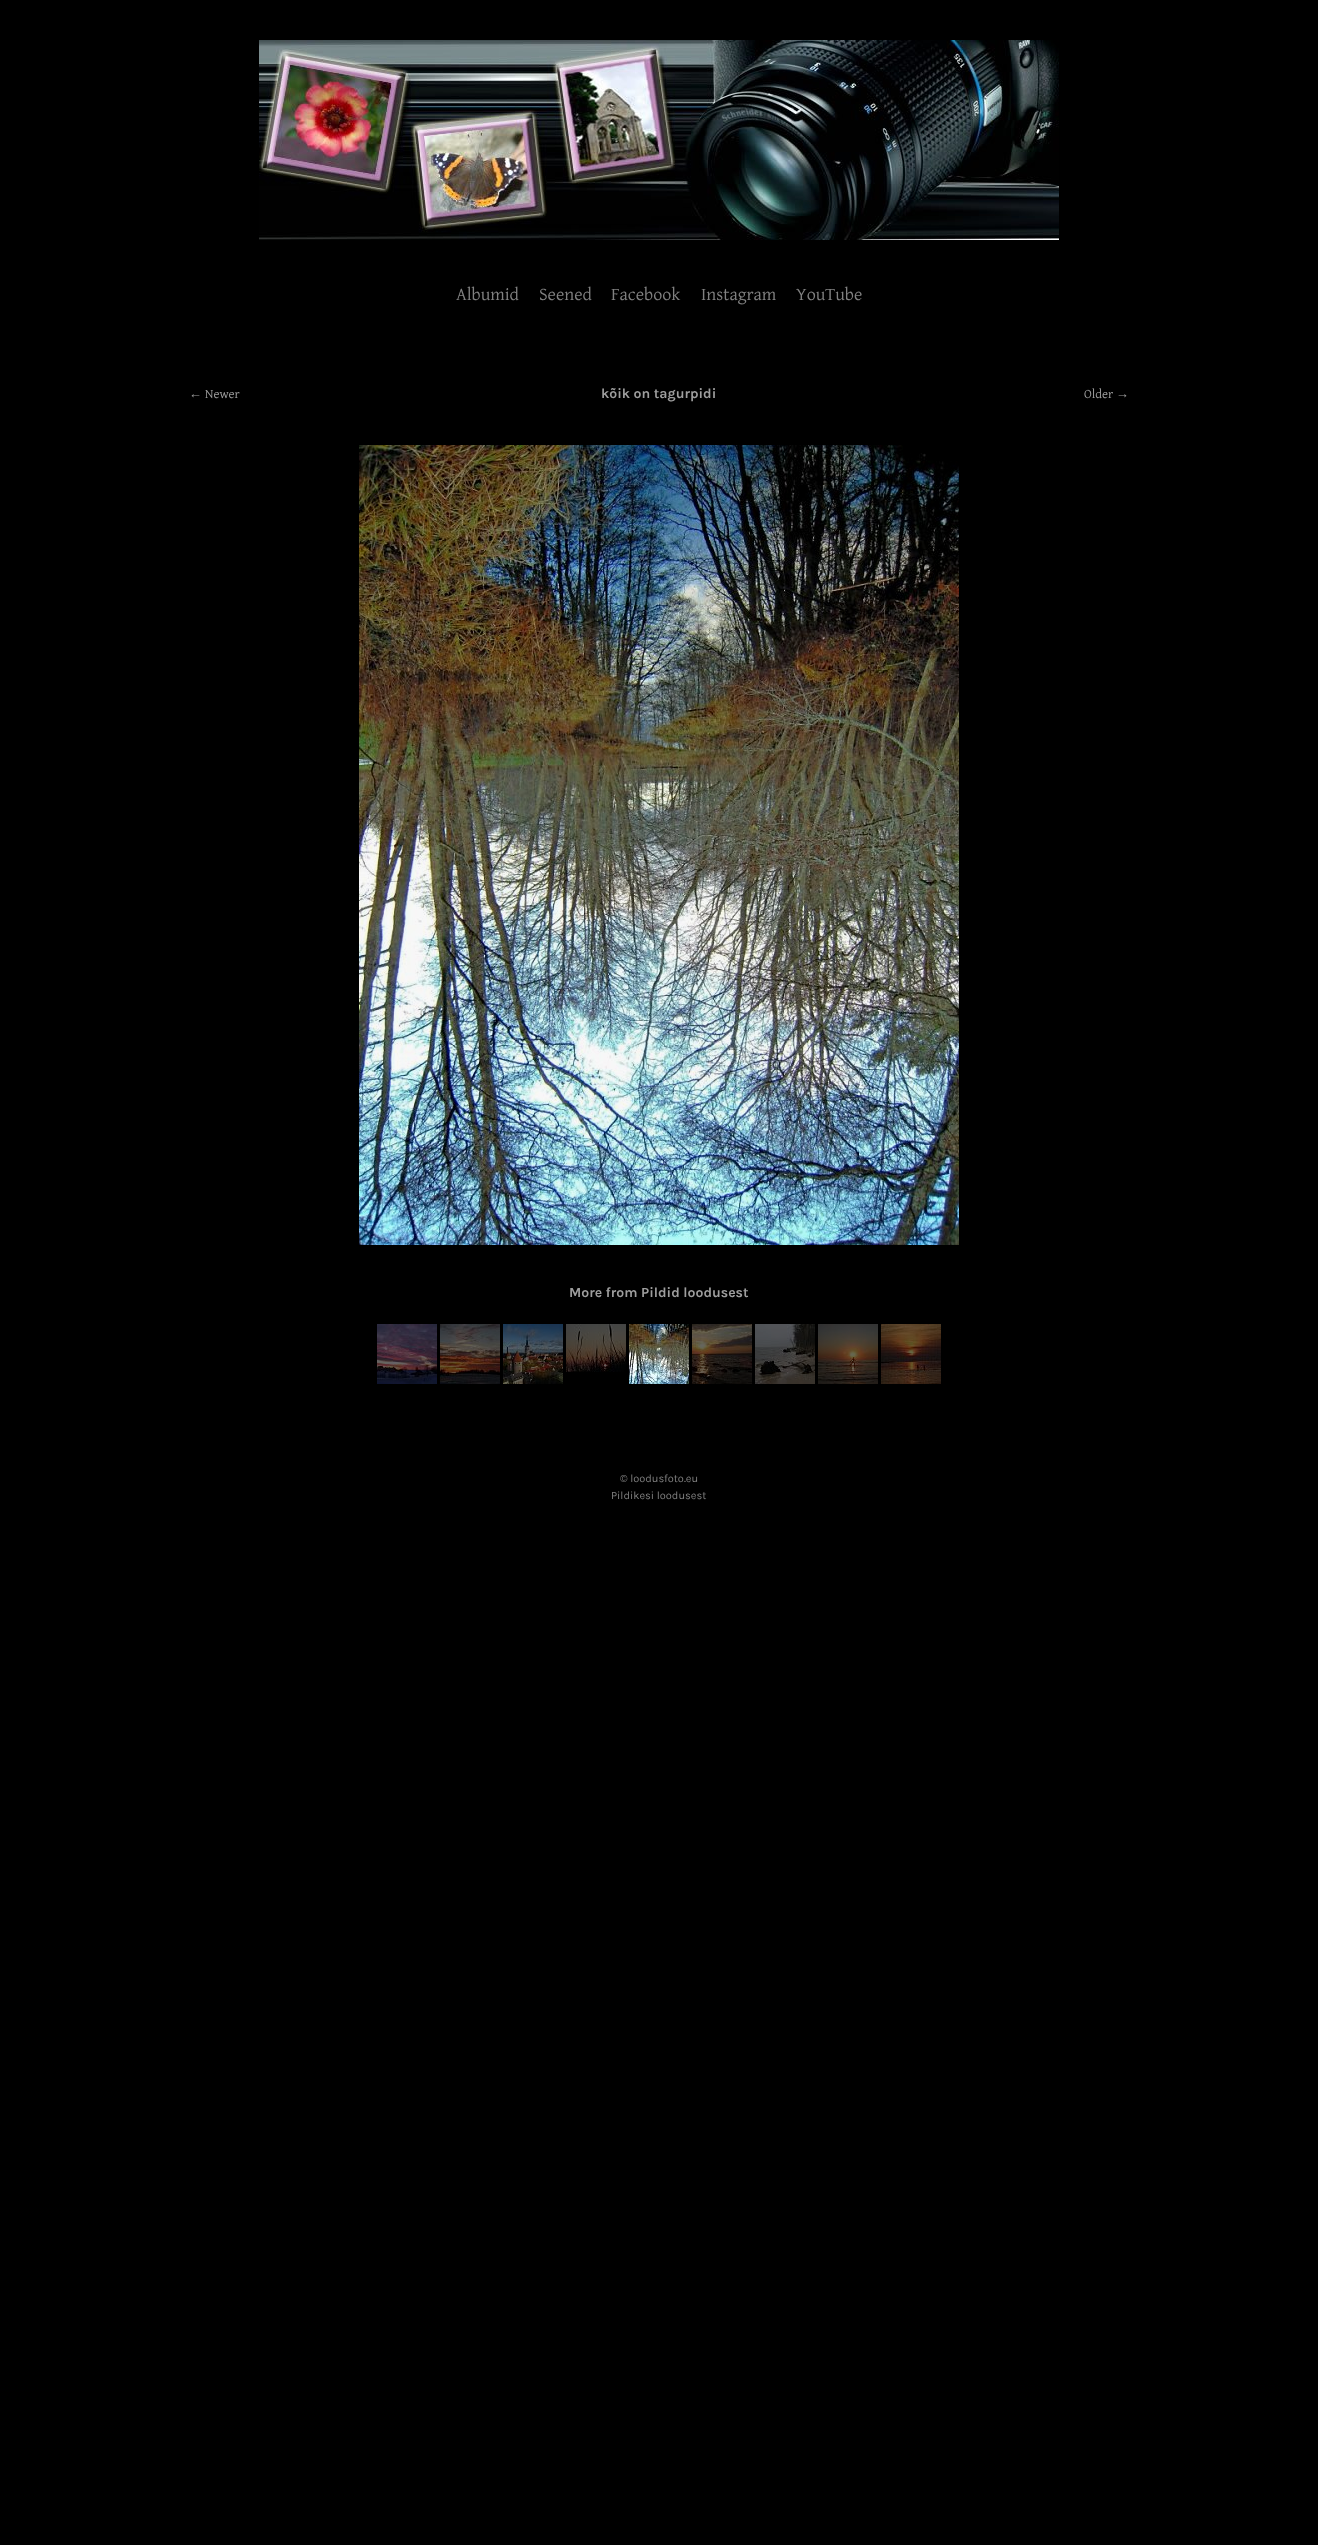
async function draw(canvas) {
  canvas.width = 1318
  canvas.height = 2545
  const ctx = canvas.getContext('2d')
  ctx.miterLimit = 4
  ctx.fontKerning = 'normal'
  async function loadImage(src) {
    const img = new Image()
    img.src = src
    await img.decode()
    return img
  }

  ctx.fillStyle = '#000'
  ctx.fillRect(0, 0, 1318, 2545)
  ctx.drawImage(await loadImage('image0.png'), 259, 40, 800, 200)
  ctx.font = '18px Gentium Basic'
  ctx.fillStyle = '#818181'
  ctx.fillText('Albumid', 456, 300)
  ctx.fillText('Seened', 539, 300)
  ctx.fillText('Facebook', 611, 300)
  ctx.fillText('Instagram', 701, 300)
  ctx.fillText('YouTube', 796, 300)
  ctx.font = '13px Liberation Serif'
  ctx.fillStyle = '#9e9e9e'
  ctx.fillText('←', 189, 398)
  ctx.font = '13px Gentium Basic'
  ctx.fillText('Newer', 205, 398)
  ctx.font = 'bold 14px Karla'
  ctx.fillText('kõik on tagurpidi', 601, 398)
  ctx.font = '13px Gentium Basic'
  ctx.fillText('Older', 1084, 398)
  ctx.font = '13px Liberation Serif'
  ctx.fillText('→', 1116, 398)
  ctx.drawImage(await loadImage('image1.png'), 359, 445, 600, 800)
  ctx.font = 'bold 14px Karla'
  ctx.fillText('More from Pildid loodusest', 569, 1297)
  ctx.drawImage(await loadImage('image2.png'), 377, 1324, 60, 60)
  ctx.drawImage(await loadImage('image3.png'), 440, 1324, 60, 60)
  ctx.drawImage(await loadImage('image4.png'), 503, 1324, 60, 60)
  ctx.drawImage(await loadImage('image5.png'), 566, 1324, 60, 48)
  ctx.drawImage(await loadImage('image6.png'), 629, 1324, 60, 60)
  ctx.drawImage(await loadImage('image7.png'), 692, 1324, 60, 60)
  ctx.drawImage(await loadImage('image8.png'), 755, 1324, 60, 60)
  ctx.drawImage(await loadImage('image9.png'), 818, 1324, 60, 60)
  ctx.drawImage(await loadImage('image10.png'), 881, 1324, 60, 60)
  ctx.font = '11px Karla'
  ctx.fillStyle = '#818181'
  ctx.fillText('© loodusfoto.eu', 620, 1482)
  ctx.fillText('Pildikesi loodusest', 611, 1499)
}

draw(document.querySelector('canvas'))
